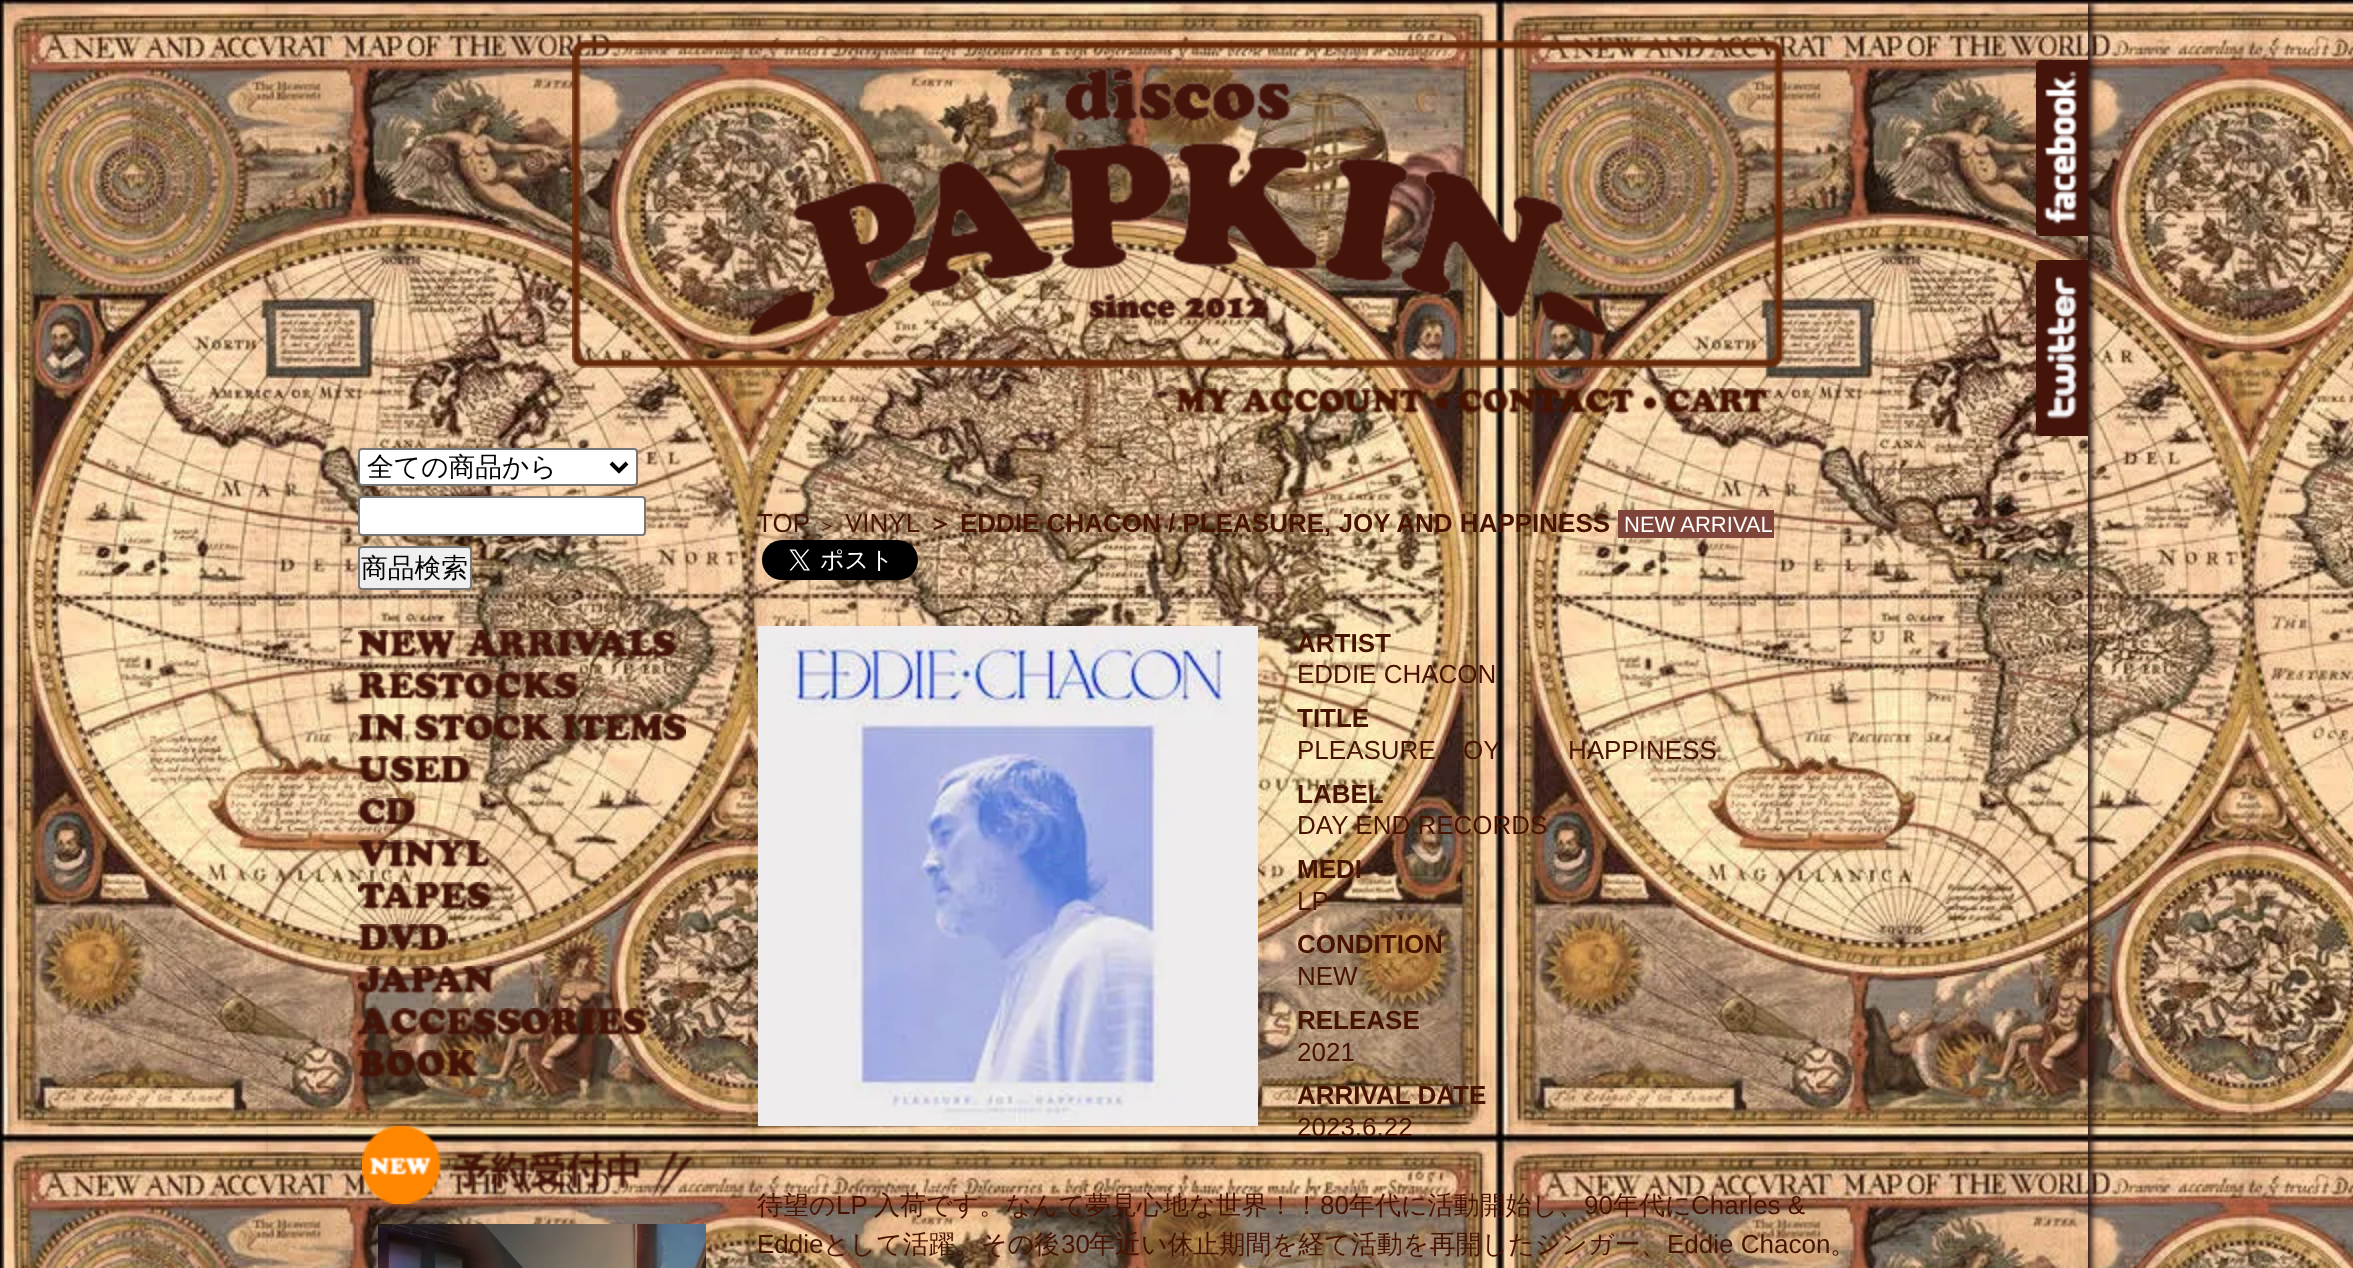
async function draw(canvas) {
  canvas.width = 2353
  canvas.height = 1268
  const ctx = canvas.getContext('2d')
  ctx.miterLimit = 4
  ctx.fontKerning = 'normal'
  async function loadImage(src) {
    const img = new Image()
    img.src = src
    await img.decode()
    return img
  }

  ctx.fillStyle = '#fff'
  ctx.fillRect(0, 0, 2353, 1268)
  ctx.drawImage(await loadImage('image0.png'), 0, 0, 2353, 1268)
  ctx.save()
  ctx.beginPath()
  ctx.moveTo(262, 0)
  ctx.lineTo(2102, 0)
  ctx.lineTo(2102, 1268)
  ctx.lineTo(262, 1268)
  ctx.closePath()
  ctx.moveTo(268, 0)
  ctx.lineTo(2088, 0)
  ctx.lineTo(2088, 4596)
  ctx.lineTo(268, 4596)
  ctx.closePath()
  ctx.clip('evenodd')
  ctx.fillStyle = '#281310'
  ctx.filter = 'blur(3px)'
  ctx.beginPath()
  ctx.rect(272, 2, 1820, 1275)
  ctx.fill()
  ctx.filter = 'none'
  ctx.restore()
  ctx.drawImage(await loadImage('image1.png'), 572, 40, 1212, 328)
  ctx.drawImage(await loadImage('image2.png'), 1176, 388, 273, 26)
  ctx.drawImage(await loadImage('image3.png'), 1458, 388, 199, 26)
  ctx.drawImage(await loadImage('image4.png'), 1666, 388, 102, 26)
  ctx.drawImage(await loadImage('image5.png'), 2036, 60, 52, 176)
  ctx.drawImage(await loadImage('image6.png'), 2036, 260, 52, 176)
  ctx.beginPath()
  ctx.roundRect(359, 449, 278, 36, 3)
  ctx.fill()
  ctx.strokeStyle = '#767676'
  ctx.lineWidth = 2
  ctx.stroke()
  ctx.beginPath()
  ctx.moveTo(611, 463)
  ctx.lineTo(619, 471)
  ctx.lineTo(627, 463)
  ctx.strokeStyle = '#000'
  ctx.lineWidth = 4
  ctx.stroke()
  ctx.font = '500 26.75px WenQuanYi Zen Hei'
  ctx.fillStyle = '#000'
  ctx.fillText('全ての商品から', 367, 476)
  ctx.fillStyle = '#fff'
  ctx.beginPath()
  ctx.roundRect(359, 497, 286, 38, 3)
  ctx.fill()
  ctx.strokeStyle = '#767676'
  ctx.lineWidth = 2
  ctx.stroke()
  ctx.fillStyle = '#efefef'
  ctx.beginPath()
  ctx.roundRect(359, 547, 112, 42, 3)
  ctx.fill()
  ctx.stroke()
  ctx.fillStyle = '#000'
  ctx.fillText('商品検索', 361, 577)
  ctx.drawImage(await loadImage('image7.png'), 358, 630, 319, 29)
  ctx.drawImage(await loadImage('image8.png'), 358, 672, 221, 29)
  ctx.drawImage(await loadImage('image9.png'), 358, 714, 328, 29)
  ctx.drawImage(await loadImage('image10.png'), 358, 756, 113, 29)
  ctx.drawImage(await loadImage('image11.png'), 358, 798, 59, 29)
  ctx.drawImage(await loadImage('image12.png'), 358, 840, 133, 29)
  ctx.drawImage(await loadImage('image13.png'), 358, 882, 133, 29)
  ctx.drawImage(await loadImage('image14.png'), 358, 924, 90, 29)
  ctx.drawImage(await loadImage('image15.png'), 358, 966, 137, 29)
  ctx.drawImage(await loadImage('image16.png'), 358, 1008, 289, 29)
  ctx.drawImage(await loadImage('image17.png'), 358, 1050, 121, 29)
  ctx.drawImage(await loadImage('image18.png'), 362, 1126, 330, 78)
  ctx.drawImage(await loadImage('image19.png'), 378, 1224, 328, 44)
  ctx.font = '26px Liberation Sans'
  ctx.fillStyle = '#471200'
  ctx.fillText('TOP', 757, 532)
  ctx.font = '500 20px WenQuanYi Zen Hei'
  ctx.fillText('＞', 817, 532)
  ctx.font = '26px Liberation Sans'
  ctx.fillText('VINYL', 845, 532)
  ctx.font = 'bold 26px WenQuanYi Zen Hei'
  ctx.fillText('＞', 927, 532)
  ctx.font = 'bold 26px Liberation Sans'
  ctx.fillText('EDDIE CHACON / PLEASURE, JOY AND HAPPINESS', 960, 532)
  ctx.fillStyle = '#80453a'
  ctx.fillRect(1618, 510, 156, 28)
  ctx.font = '22px Liberation Sans'
  ctx.fillStyle = '#fff'
  ctx.fillText('NEW ARRIVAL', 1624, 532)
  ctx.drawImage(await loadImage('image20.png'), 762, 540, 156, 40)
  ctx.drawImage(await loadImage('image21.png'), 758, 626, 500, 500)
  ctx.font = 'bold 26px Liberation Sans'
  ctx.fillStyle = '#471200'
  ctx.fillText('ARTIST', 1297, 652)
  ctx.font = '26px Liberation Sans'
  ctx.fillText('EDDIE CHACON', 1297, 683)
  ctx.font = 'bold 26px Liberation Sans'
  ctx.fillText('TITLE', 1297, 727)
  ctx.font = '26px Liberation Sans'
  ctx.fillText('PLEASURE', 1297, 759)
  ctx.fillText('OY', 1463, 759)
  ctx.fillText('HAPPINESS', 1568, 759)
  ctx.font = 'bold 26px Liberation Sans'
  ctx.fillText('LABEL', 1297, 803)
  ctx.font = '26px Liberation Sans'
  ctx.fillText('DAY END RECORDS', 1297, 834)
  ctx.font = 'bold 26px Liberation Sans'
  ctx.fillText('MEDI', 1297, 878)
  ctx.font = '26px Liberation Sans'
  ctx.fillText('LP', 1297, 910)
  ctx.font = 'bold 26px Liberation Sans'
  ctx.fillText('CONDITION', 1297, 953)
  ctx.font = '26px Liberation Sans'
  ctx.fillText('NEW', 1297, 985)
  ctx.font = 'bold 26px Liberation Sans'
  ctx.fillText('RELEASE', 1297, 1029)
  ctx.font = '26px Liberation Sans'
  ctx.fillText('2021', 1297, 1061)
  ctx.font = 'bold 26px Liberation Sans'
  ctx.fillText('ARRIVAL DATE', 1297, 1104)
  ctx.font = '26px Liberation Sans'
  ctx.fillText('2023.6.22', 1297, 1136)
  ctx.font = '500 26px WenQuanYi Zen Hei'
  ctx.fillText('待望の', 757, 1214)
  ctx.font = '26px Liberation Sans'
  ctx.fillText('LP', 836, 1214)
  ctx.font = '500 26px WenQuanYi Zen Hei'
  ctx.fillText('入荷です。なんて夢見心地な世界！！', 874, 1214)
  ctx.font = '26px Liberation Sans'
  ctx.fillText('80', 1320, 1214)
  ctx.font = '500 26px WenQuanYi Zen Hei'
  ctx.fillText('年代に活動開始し、', 1349, 1214)
  ctx.font = '26px Liberation Sans'
  ctx.fillText('90', 1584, 1214)
  ctx.font = '500 26px WenQuanYi Zen Hei'
  ctx.fillText('年代に', 1613, 1214)
  ctx.font = '26px Liberation Sans'
  ctx.fillText('Charles &', 1691, 1214)
  ctx.fillText('Eddie', 757, 1253)
  ctx.font = '500 26px WenQuanYi Zen Hei'
  ctx.fillText('として活躍。その後', 823, 1253)
  ctx.font = '26px Liberation Sans'
  ctx.fillText('30', 1061, 1253)
  ctx.font = '500 26px WenQuanYi Zen Hei'
  ctx.fillText('年近い休止期間を経て活動を再開したシンガー、', 1089, 1253)
  ctx.font = '26px Liberation Sans'
  ctx.fillText('Eddie Chacon', 1667, 1253)
  ctx.font = '500 26px WenQuanYi Zen Hei'
  ctx.fillText('。', 1830, 1253)
}

draw(document.querySelector('canvas'))
